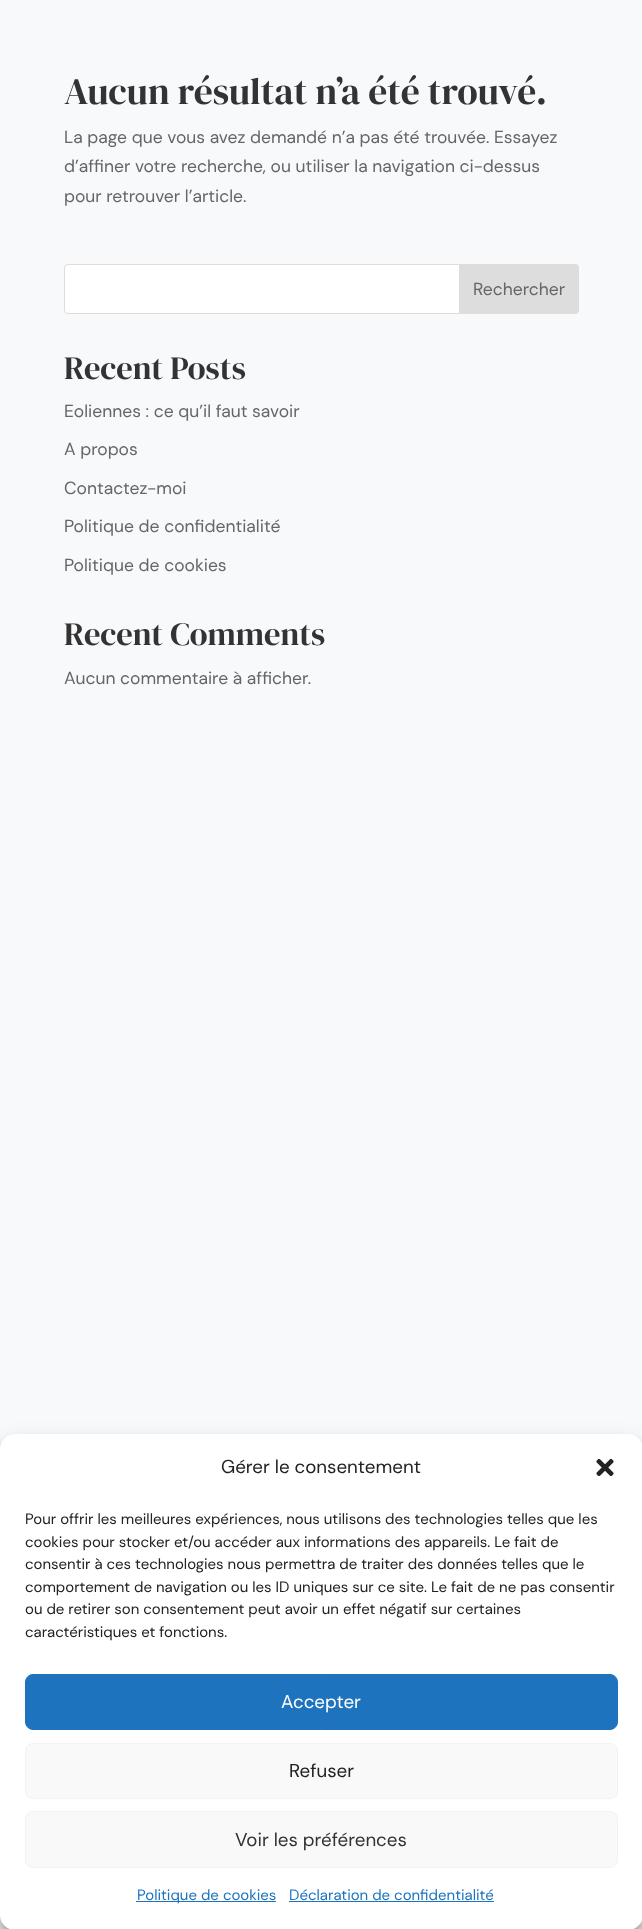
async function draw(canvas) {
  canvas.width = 642
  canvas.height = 1929
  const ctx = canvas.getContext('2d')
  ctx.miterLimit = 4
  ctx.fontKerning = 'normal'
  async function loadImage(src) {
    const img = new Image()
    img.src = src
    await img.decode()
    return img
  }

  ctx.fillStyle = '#f7f9fb'
  ctx.fillRect(0, 0, 642, 1929)
  ctx.font = '37.5px DM Serif Display'
  ctx.fillStyle = '#333'
  ctx.fillText('Aucun résultat n’a été trouvé.', 64, 104)
  ctx.font = '17.5px DM Sans'
  ctx.fillStyle = '#666'
  ctx.fillText('La page que vous avez demandé n’a pas été trouvée. Essayez', 64, 143)
  ctx.fillText('d’affiner votre recherche, ou utiliser la navigation ci-dessus', 64, 172)
  ctx.fillText('pour retrouver l’article.', 64, 202)
  ctx.fillStyle = '#fff'
  ctx.beginPath()
  ctx.roundRect(64.5, 264.5, 514, 49, 3.5)
  ctx.fill()
  ctx.strokeStyle = '#ddd'
  ctx.stroke()
  ctx.fillStyle = '#ddd'
  ctx.beginPath()
  ctx.roundRect(459.5, 264.5, 119, 49, [0, 3.5, 3.5, 0])
  ctx.fill()
  ctx.stroke()
  ctx.fillStyle = '#666'
  ctx.fillText('Rechercher', 473, 295)
  ctx.font = '32.5px DM Serif Display'
  ctx.fillStyle = '#333'
  ctx.fillText('Recent Posts', 64, 379)
  ctx.font = '17.5px DM Sans'
  ctx.fillStyle = '#666'
  ctx.fillText('Eoliennes : ce qu’il faut savoir', 64, 417)
  ctx.fillText('A propos', 64, 455)
  ctx.fillText('Contactez-moi', 64, 494)
  ctx.fillText('Politique de confidentialité', 64, 532)
  ctx.fillText('Politique de cookies', 64, 571)
  ctx.font = '32.5px DM Serif Display'
  ctx.fillStyle = '#333'
  ctx.fillText('Recent Comments', 64, 645)
  ctx.font = '17.5px DM Sans'
  ctx.fillStyle = '#666'
  ctx.fillText('Aucun commentaire à afficher.', 64, 684)
  ctx.fillStyle = '#0000003b'
  ctx.filter = 'blur(4px)'
  ctx.beginPath()
  ctx.roundRect(0, 1441, 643, 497, 15)
  ctx.fill()
  ctx.filter = 'none'
  ctx.fillStyle = '#00000030'
  ctx.filter = 'blur(12.5px)'
  ctx.beginPath()
  ctx.roundRect(0, 1446, 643, 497, 15)
  ctx.fill()
  ctx.filter = 'none'
  ctx.fillStyle = '#fff'
  ctx.beginPath()
  ctx.roundRect(0, 1434, 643, 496, 15)
  ctx.fill()
  ctx.font = '18.75px DM Sans'
  ctx.fillStyle = '#222'
  ctx.fillText('Gérer le consentement', 221, 1473)
  ctx.drawImage(await loadImage('image0.png'), 596, 1458, 18, 18)
  ctx.font = '15px DM Sans'
  ctx.fillText('Pour offrir les meilleures expériences, nous utilisons des technologies telles que les', 25, 1524)
  ctx.fillText('cookies pour stocker et/ou accéder aux informations des appareils. Le fait de', 25, 1547)
  ctx.fillText('consentir à ces technologies nous permettra de traiter des données telles que le', 25, 1569)
  ctx.fillText('comportement de navigation ou les ID uniques sur ce site. Le fait de ne pas consentir', 25, 1592)
  ctx.fillText('ou de retirer son consentement peut avoir un effet négatif sur certaines', 25, 1614)
  ctx.fillText('caractéristiques et fonctions.', 25, 1637)
  ctx.fillStyle = '#1e73be'
  ctx.beginPath()
  ctx.roundRect(25.5, 1674.5, 592, 55, 7.5)
  ctx.fill()
  ctx.strokeStyle = '#1e73be'
  ctx.stroke()
  ctx.font = '18.75px DM Sans'
  ctx.fillStyle = '#fff'
  ctx.fillText('Accepter', 281, 1708)
  ctx.fillStyle = '#f9f9f9'
  ctx.beginPath()
  ctx.roundRect(25.5, 1743.5, 592, 55, 7.5)
  ctx.fill()
  ctx.strokeStyle = '#f2f2f2'
  ctx.stroke()
  ctx.fillStyle = '#222'
  ctx.fillText('Refuser', 289, 1777)
  ctx.fillStyle = '#f9f9f9'
  ctx.beginPath()
  ctx.roundRect(25.5, 1811.5, 592, 56, 7.5)
  ctx.fill()
  ctx.stroke()
  ctx.fillStyle = '#333'
  ctx.fillText('Voir les préférences', 235, 1846)
  ctx.fillStyle = '#1e73be'
  ctx.fillRect(136, 1901, 140, 1)
  ctx.font = '15px DM Sans'
  ctx.fillText('Politique de cookies', 137, 1900)
  ctx.fillText('Déclaration de confidentialité', 289, 1900)
  ctx.fillRect(289, 1901, 205, 1)
}

draw(document.querySelector('canvas'))
